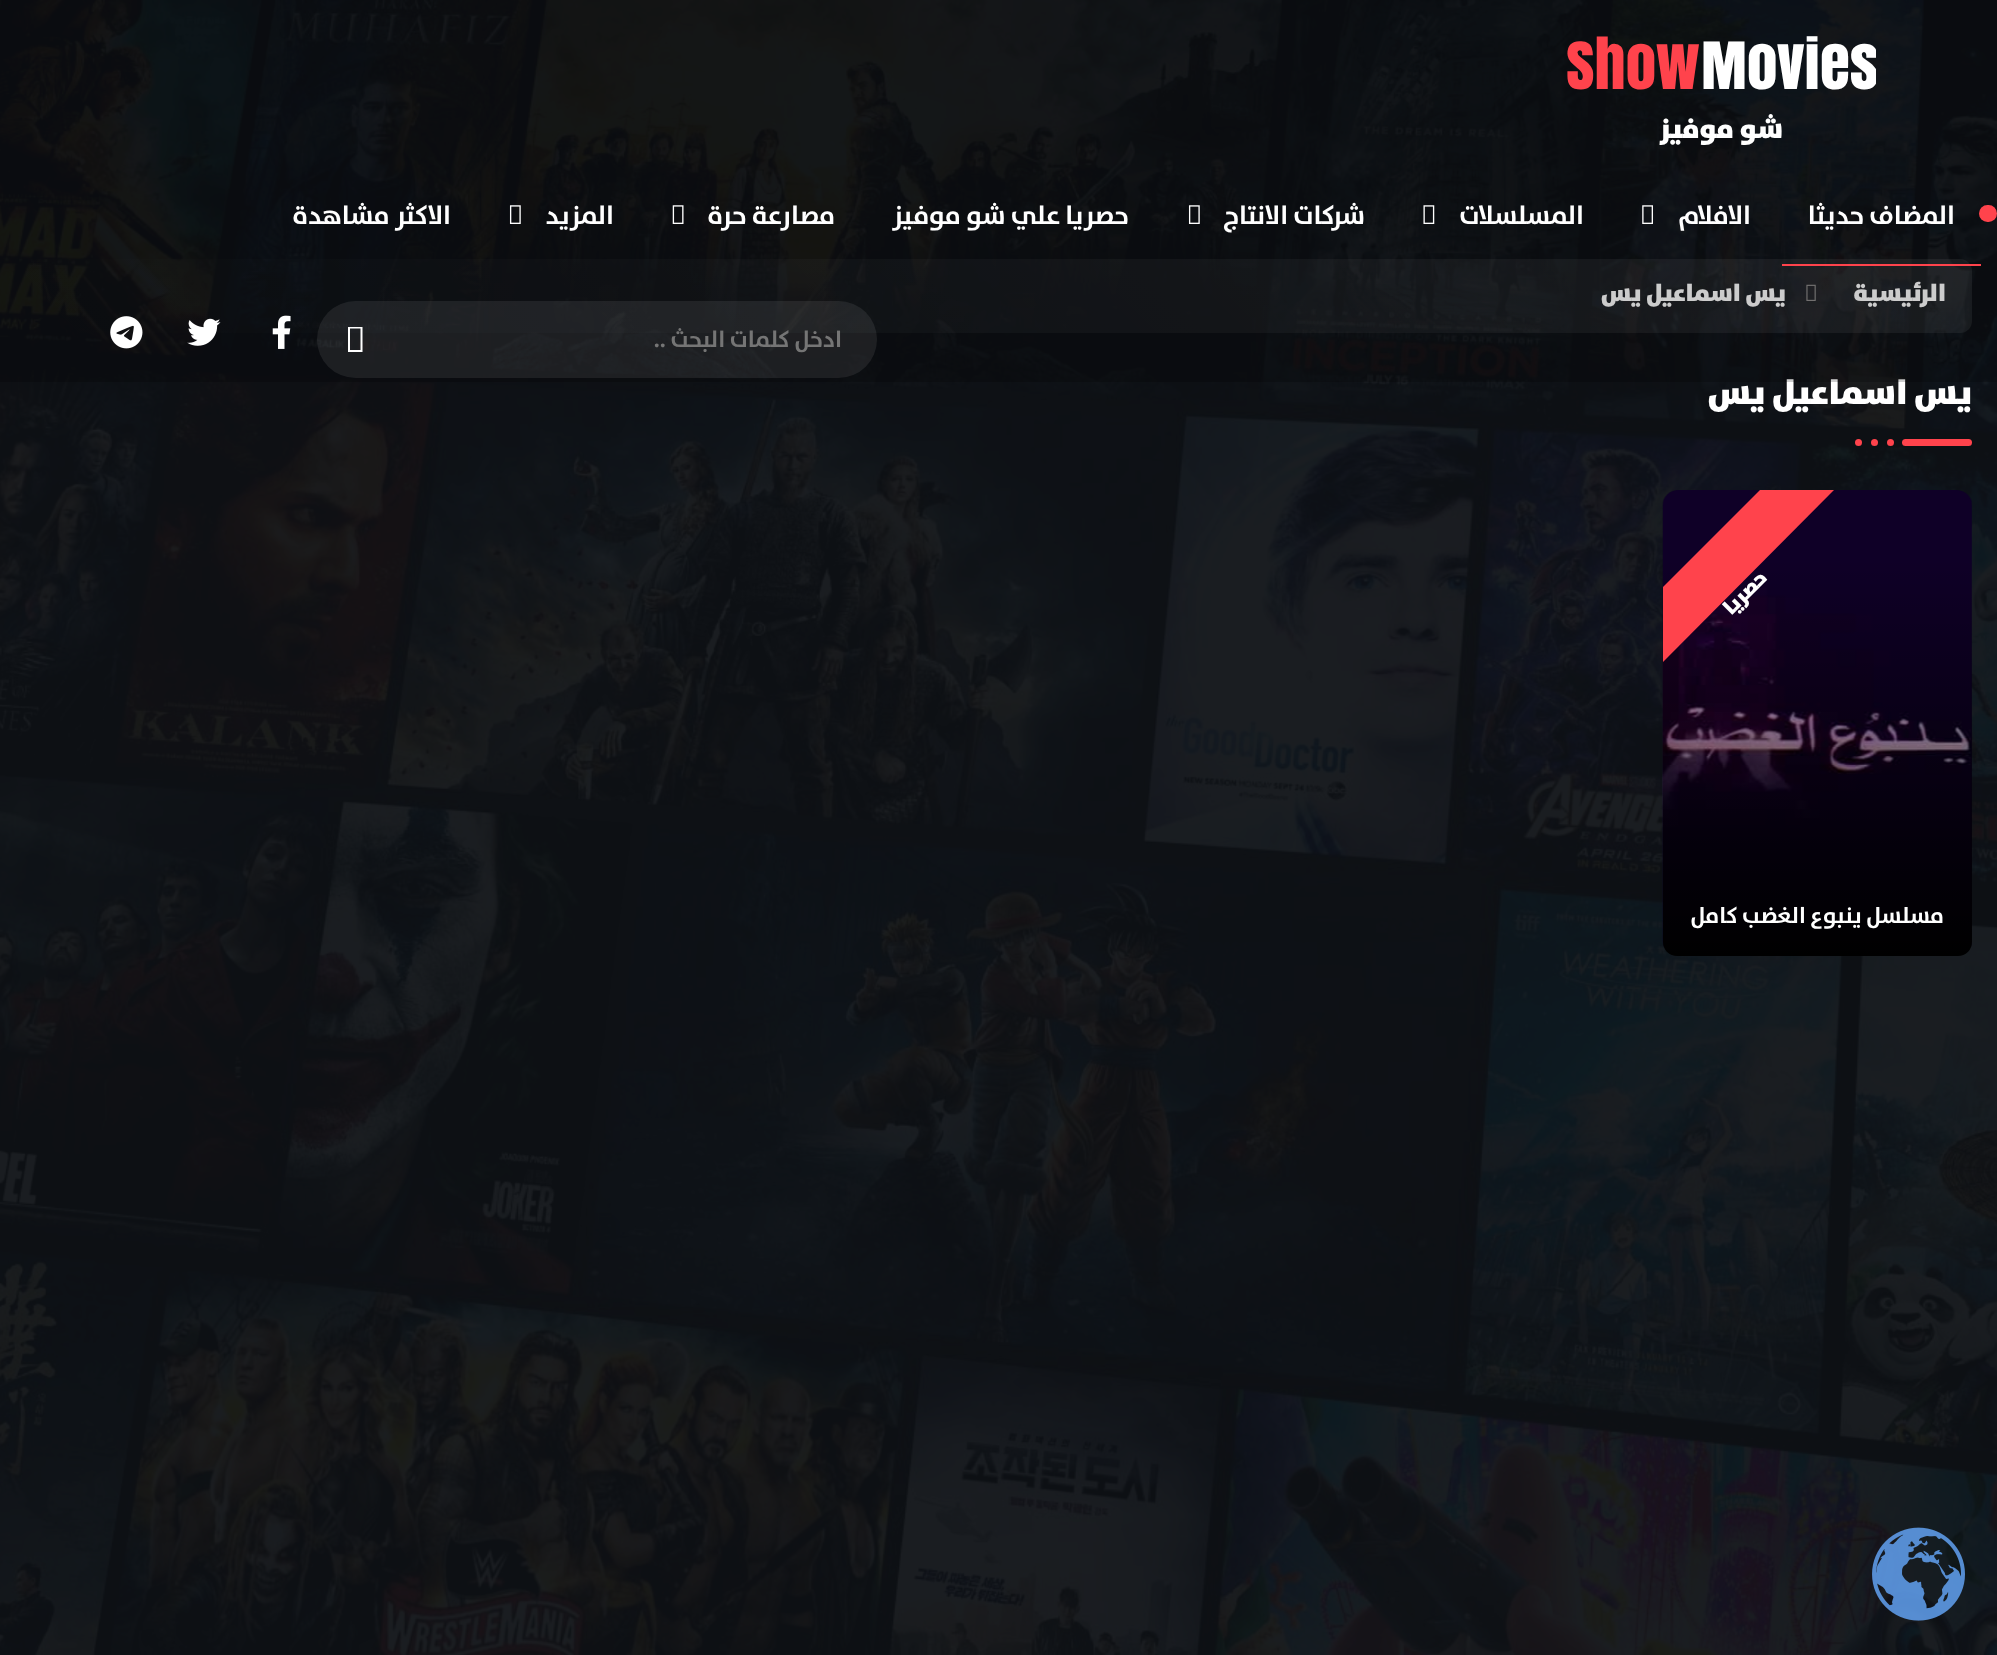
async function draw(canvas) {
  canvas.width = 1997
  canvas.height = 1655
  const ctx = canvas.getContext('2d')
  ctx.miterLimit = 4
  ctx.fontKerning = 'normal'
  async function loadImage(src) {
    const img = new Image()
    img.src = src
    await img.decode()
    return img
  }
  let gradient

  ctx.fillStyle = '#0e1116'
  ctx.fillRect(0, 0, 1997, 1655)
  ctx.drawImage(await loadImage('image0.png'), 0, 0, 1997, 1655)
  gradient = ctx.createLinearGradient(494, 801, 1504, -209)
  gradient.addColorStop(0, '#ffffff00')
  gradient.addColorStop(1, '#ffffff14')
  ctx.fillStyle = gradient
  ctx.beginPath()
  ctx.roundRect(26, 259, 1946, 74, 12)
  ctx.fill()
  ctx.direction = 'rtl'
  ctx.font = '900 24.5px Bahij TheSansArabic'
  ctx.fillStyle = '#fff'
  ctx.fillText('الرئيسية', 1946, 301)
  ctx.drawImage(await loadImage('image9.png'), 1806, 284, 10, 17)
  ctx.fillText('يس اسماعيل يس', 1786, 301)
  ctx.font = '900 35px Bahij TheSansArabic'
  ctx.fillText('يس اسماعيل يس', 1972, 404)
  ctx.fillStyle = '#00000033'
  ctx.fillRect(0, 0, 1997, 382)
  ctx.save()
  ctx.beginPath()
  ctx.rect(1566, 0, 310, 151)
  ctx.clip()
  ctx.direction = 'ltr'
  ctx.font = '61px Anton'
  ctx.fillStyle = '#fff'
  ctx.fillText('Movies', 1701, 89)
  ctx.restore()
  ctx.direction = 'ltr'
  ctx.font = '61px Anton'
  ctx.fillStyle = '#ff434c'
  ctx.fillText('Show', 1566, 89)
  ctx.direction = 'rtl'
  ctx.font = '900 28px Bahij TheSansArabic'
  ctx.fillStyle = '#fff'
  ctx.fillText('شو موفيز', 1783, 138)
  ctx.fillStyle = '#ff434c'
  ctx.fillRect(1782, 264, 199, 2)
  ctx.beginPath()
  ctx.roundRect(1979, 205, 18, 17, 8.5)
  ctx.fill()
  ctx.font = 'bold 26.25px Bahij TheSansArabic'
  ctx.fillStyle = '#fff'
  ctx.fillText('المضاف حديثا', 1955, 224)
  ctx.fillText('الافلام', 1751, 224)
  ctx.drawImage(await loadImage('image1.png'), 1642, 205, 11, 19)
  ctx.fillText('المسلسلات', 1584, 224)
  ctx.drawImage(await loadImage('image2.png'), 1423, 205, 12, 19)
  ctx.fillText('شركات الانتاج', 1365, 224)
  ctx.drawImage(await loadImage('image3.png'), 1188, 205, 12, 19)
  ctx.fillText('حصريا علي شو موفيز', 1129, 224)
  ctx.fillText('مصارعة حرة', 835, 224)
  ctx.drawImage(await loadImage('image4.png'), 672, 205, 12, 19)
  ctx.fillText('المزيد', 614, 224)
  ctx.drawImage(await loadImage('image5.png'), 509, 205, 12, 19)
  ctx.fillText('الاكثر مشاهدة', 451, 224)
  ctx.fillStyle = '#ffffff14'
  ctx.beginPath()
  ctx.roundRect(317, 301, 560, 77, 38.5)
  ctx.fill()
  ctx.font = 'bold 23.25px Bahij TheSansArabic'
  ctx.fillStyle = '#757575'
  ctx.fillText('ادخل كلمات البحث ..', 842, 347)
  ctx.fillStyle = '#fff'
  ctx.beginPath()
  ctx.moveTo(348, 352)
  ctx.lineTo(348, 327)
  ctx.lineTo(362.5, 327)
  ctx.lineTo(362.5, 352)
  ctx.closePath()
  ctx.moveTo(350, 350)
  ctx.lineTo(360.5, 350)
  ctx.lineTo(360.5, 328.5)
  ctx.lineTo(350, 328.5)
  ctx.closePath()
  ctx.fill()
  ctx.drawImage(await loadImage('image6.png'), 272, 315, 19, 34)
  ctx.drawImage(await loadImage('image7.png'), 187, 318, 34, 28)
  ctx.drawImage(await loadImage('image8.png'), 110, 316, 33, 33)
  ctx.fillStyle = '#ff434c'
  ctx.beginPath()
  ctx.roundRect(1902, 439, 70, 7, 3.5)
  ctx.fill()
  ctx.beginPath()
  ctx.arc(1890.5, 442.5, 3.5, 0, 2 * Math.PI)
  ctx.fill()
  ctx.beginPath()
  ctx.arc(1874.5, 442.5, 3.5, 0, 2 * Math.PI)
  ctx.fill()
  ctx.beginPath()
  ctx.arc(1858.5, 442.5, 3.5, 0, 2 * Math.PI)
  ctx.fill()
  ctx.drawImage(await loadImage('image10.png'), 1662, 490, 310, 465)
  gradient = ctx.createLinearGradient(1817, 558, 1817, 956)
  gradient.addColorStop(0, '#00000000')
  gradient.addColorStop(1, '#000')
  ctx.fillStyle = gradient
  ctx.beginPath()
  ctx.roundRect(1663, 558, 309, 398, [0, 0, 14, 14])
  ctx.fill()
  ctx.fillStyle = '#ff434c'
  ctx.beginPath()
  ctx.moveTo(1834, 490)
  ctx.lineTo(1663, 662)
  ctx.lineTo(1663, 587)
  ctx.lineTo(1760, 490)
  ctx.closePath()
  ctx.fill()
  ctx.font = '900 21px Bahij TheSansArabic'
  ctx.fillStyle = '#fff'
  ctx.save()
  ctx.translate(1768, 579)
  ctx.rotate(-45 * Math.PI / 180)
  ctx.fillText('حصريا', 0, 0)
  ctx.restore()
  ctx.font = 'bold 22.75px Bahij TheSansArabic'
  ctx.fillText('مسلسل ينبوع الغضب كامل', 1944, 923)
  ctx.drawImage(await loadImage('image11.png'), 1872, 1527, 93, 94)
}

draw(document.querySelector('canvas'))
